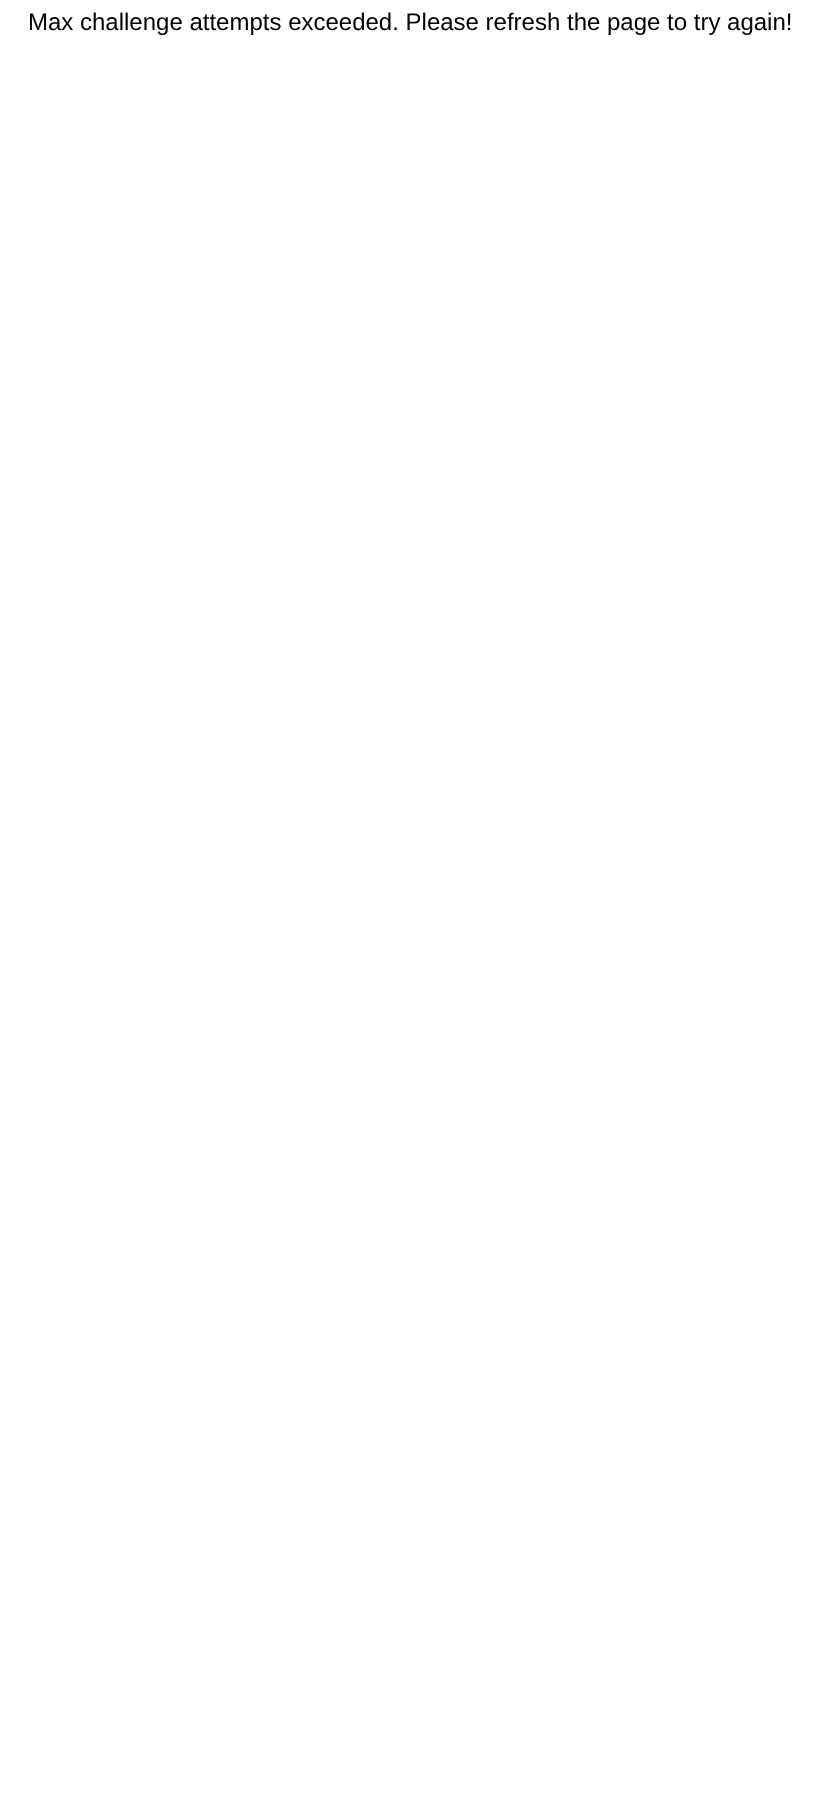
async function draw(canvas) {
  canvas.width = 824
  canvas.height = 1797
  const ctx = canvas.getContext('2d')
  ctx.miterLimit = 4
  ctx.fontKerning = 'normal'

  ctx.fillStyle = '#fff'
  ctx.fillRect(0, 0, 824, 1797)
  ctx.font = '24px Liberation Sans'
  ctx.fillStyle = '#000'
  ctx.fillText('Max challenge attempts exceeded. Please refresh the page to try again!', 28, 30)
}

draw(document.querySelector('canvas'))
